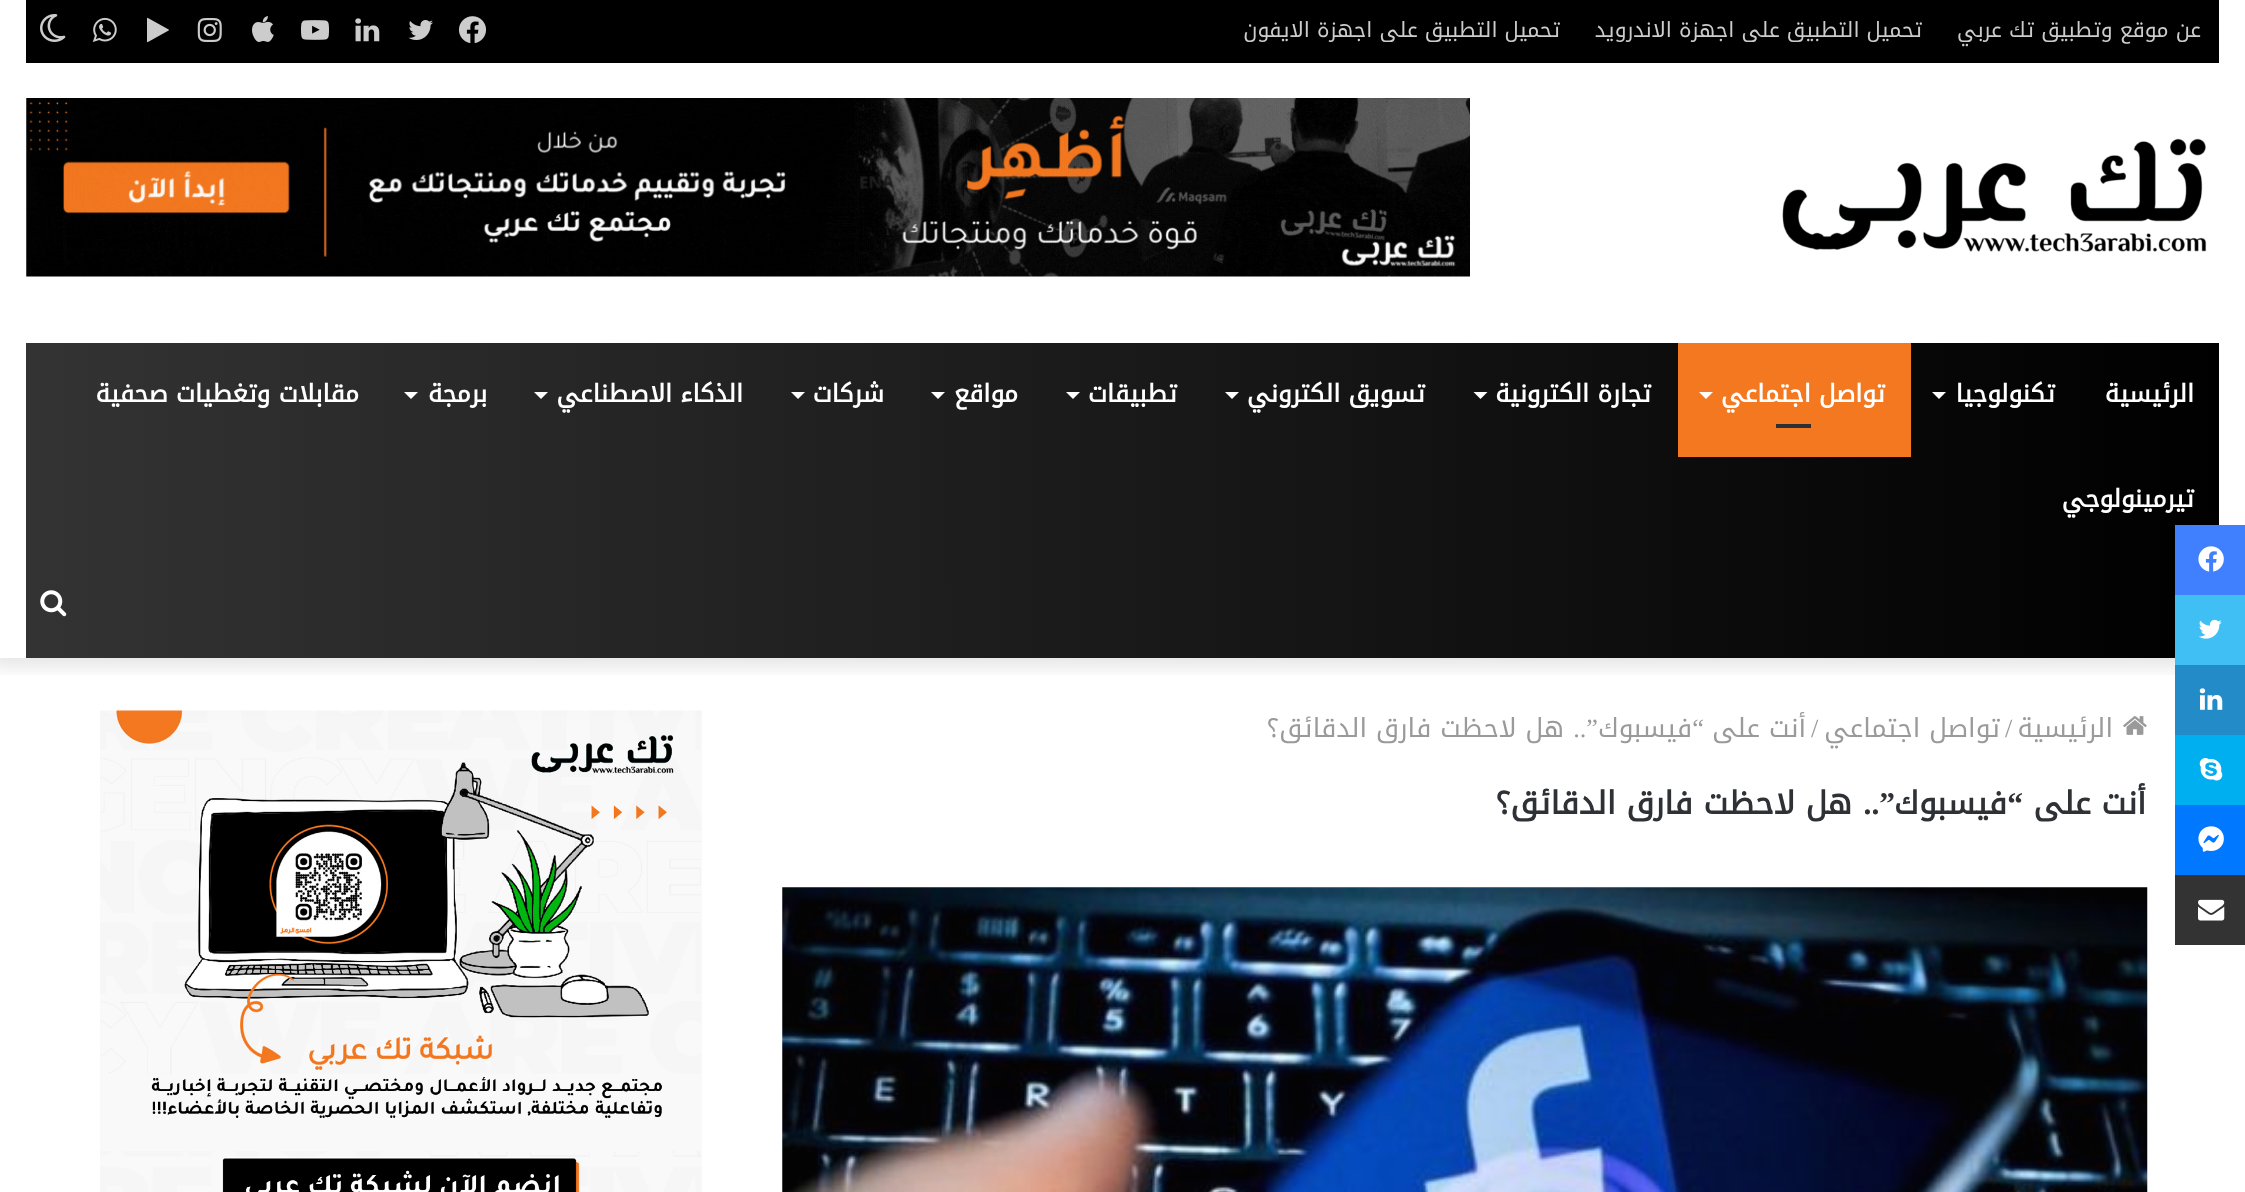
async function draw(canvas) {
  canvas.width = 2245
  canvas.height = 1192
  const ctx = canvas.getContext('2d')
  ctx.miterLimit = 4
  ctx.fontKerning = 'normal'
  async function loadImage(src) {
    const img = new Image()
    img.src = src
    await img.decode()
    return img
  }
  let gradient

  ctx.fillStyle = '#fff'
  ctx.fillRect(0, 0, 2245, 1192)
  ctx.save()
  ctx.beginPath()
  ctx.rect(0, 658, 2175, 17)
  ctx.clip()
  ctx.fillStyle = '#0000001a'
  ctx.filter = 'blur(9px)'
  ctx.beginPath()
  ctx.rect(-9, -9, 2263, 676)
  ctx.fill()
  ctx.filter = 'none'
  ctx.restore()
  ctx.fillStyle = '#000'
  ctx.fillRect(26, 0, 2193, 63)
  ctx.direction = 'rtl'
  ctx.font = '21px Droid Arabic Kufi'
  ctx.fillStyle = '#ccc'
  ctx.fillText('عن موقع وتطبيق تك عربي', 2201, 37)
  ctx.fillText('تحميل التطبيق على اجهزة الاندرويد', 1922, 37)
  ctx.fillText('تحميل التطبيق على اجهزة الايفون', 1560, 37)
  ctx.drawImage(await loadImage('image0.png'), 458, 16, 29, 28)
  ctx.drawImage(await loadImage('image1.png'), 408, 20, 25, 20)
  ctx.drawImage(await loadImage('image2.png'), 355, 18, 25, 24)
  ctx.drawImage(await loadImage('image3.png'), 301, 20, 28, 20)
  ctx.drawImage(await loadImage('image4.png'), 252, 16, 22, 26)
  ctx.drawImage(await loadImage('image5.png'), 197, 18, 25, 24)
  ctx.drawImage(await loadImage('image6.png'), 147, 17, 22, 26)
  ctx.drawImage(await loadImage('image7.png'), 92, 17, 25, 25)
  ctx.drawImage(await loadImage('image8.png'), 40, 14, 26, 28)
  ctx.drawImage(await loadImage('image9.png'), 1782, 138, 425, 114)
  ctx.drawImage(await loadImage('image10.png'), 26, 98, 1444, 179)
  gradient = ctx.createLinearGradient(26, 501, 2219, 500)
  gradient.addColorStop(0, '#333')
  gradient.addColorStop(1, '#000')
  ctx.fillStyle = gradient
  ctx.fillRect(26, 343, 2193, 315)
  ctx.font = 'bold 24.5px Droid Arabic Kufi'
  ctx.fillStyle = '#fff'
  ctx.fillText('الرئيسية', 2194, 402)
  ctx.fillText('تكنولوجيا', 2055, 402)
  ctx.beginPath()
  ctx.moveTo(1932, 392)
  ctx.lineTo(1946, 392)
  ctx.lineTo(1939, 399)
  ctx.closePath()
  ctx.fill()
  ctx.fillStyle = '#f47820'
  ctx.fillRect(1678, 343, 233, 114)
  ctx.fillStyle = '#fff'
  ctx.fillText('تواصل اجتماعي', 1885, 402)
  ctx.beginPath()
  ctx.moveTo(1699, 392)
  ctx.lineTo(1713, 392)
  ctx.lineTo(1706, 399)
  ctx.closePath()
  ctx.fill()
  ctx.fillStyle = '#2c2f34'
  ctx.fillRect(1776, 424, 35, 4)
  ctx.fillStyle = '#fff'
  ctx.fillText('تجارة الكترونية', 1651, 402)
  ctx.beginPath()
  ctx.moveTo(1473.5, 392)
  ctx.lineTo(1487.5, 392)
  ctx.lineTo(1480.5, 399)
  ctx.closePath()
  ctx.fill()
  ctx.fillText('تسويق الكتروني', 1425, 402)
  ctx.beginPath()
  ctx.moveTo(1225, 392)
  ctx.lineTo(1239, 392)
  ctx.lineTo(1232, 399)
  ctx.closePath()
  ctx.fill()
  ctx.fillText('تطبيقات', 1177, 402)
  ctx.beginPath()
  ctx.moveTo(1066, 392)
  ctx.lineTo(1080, 392)
  ctx.lineTo(1073, 399)
  ctx.closePath()
  ctx.fill()
  ctx.fillText('مواقع', 1018, 402)
  ctx.beginPath()
  ctx.moveTo(931, 392)
  ctx.lineTo(945, 392)
  ctx.lineTo(938, 399)
  ctx.closePath()
  ctx.fill()
  ctx.fillText('شركات', 884, 402)
  ctx.beginPath()
  ctx.moveTo(791, 392)
  ctx.lineTo(805, 392)
  ctx.lineTo(798, 399)
  ctx.closePath()
  ctx.fill()
  ctx.fillText('الذكاء الاصطناعي', 743, 402)
  ctx.beginPath()
  ctx.moveTo(534, 392)
  ctx.lineTo(548, 392)
  ctx.lineTo(541, 399)
  ctx.closePath()
  ctx.fill()
  ctx.fillText('برمجة', 487, 402)
  ctx.beginPath()
  ctx.moveTo(404, 392)
  ctx.lineTo(418, 392)
  ctx.lineTo(411, 399)
  ctx.closePath()
  ctx.fill()
  ctx.fillText('مقابلات وتغطيات صحفية', 359, 402)
  ctx.fillText('تيرمينولوجي', 2194, 507)
  ctx.drawImage(await loadImage('image11.png'), 40, 590, 27, 27)
  ctx.fillStyle = '#4080ff'
  ctx.fillRect(2175, 525, 70, 70)
  ctx.drawImage(await loadImage('image12.png'), 2198, 546, 26, 26)
  ctx.fillStyle = '#40bff5'
  ctx.fillRect(2175, 595, 70, 70)
  ctx.drawImage(await loadImage('image13.png'), 2198, 619, 24, 20)
  ctx.fillStyle = '#238cc8'
  ctx.fillRect(2175, 665, 70, 70)
  ctx.drawImage(await loadImage('image14.png'), 2199, 688, 24, 22)
  ctx.fillStyle = '#00aff0'
  ctx.fillRect(2175, 735, 70, 70)
  ctx.drawImage(await loadImage('image15.png'), 2199, 758, 24, 23)
  ctx.fillStyle = '#0078ff'
  ctx.fillRect(2175, 805, 70, 70)
  ctx.drawImage(await loadImage('image16.png'), 2198, 826, 26, 26)
  ctx.fillStyle = '#333'
  ctx.fillRect(2175, 875, 70, 70)
  ctx.drawImage(await loadImage('image17.png'), 2198, 899, 27, 22)
  ctx.drawImage(await loadImage('image18.png'), 2123, 716, 24, 19)
  ctx.font = '26.25px Droid Arabic Kufi'
  ctx.fillStyle = '#9a9a9a'
  ctx.fillText('الرئيسية', 2113, 737)
  ctx.direction = 'ltr'
  ctx.font = '26.25px Liberation Serif'
  ctx.fillText('/', 2005, 737)
  ctx.direction = 'rtl'
  ctx.font = '26.25px Droid Arabic Kufi'
  ctx.fillText('تواصل اجتماعي', 2000, 737)
  ctx.direction = 'ltr'
  ctx.font = '26.25px Liberation Serif'
  ctx.fillText('/', 1811, 737)
  ctx.direction = 'rtl'
  ctx.font = '26.25px Droid Arabic Kufi'
  ctx.fillText('أنت على', 1806, 737)
  ctx.font = '26.25px Liberation Serif'
  ctx.fillText('“', 1704, 737)
  ctx.font = '26.25px Droid Arabic Kufi'
  ctx.fillText('فيسبوك', 1692, 737)
  ctx.font = '26.25px Liberation Serif'
  ctx.fillText('”..', 1598, 737)
  ctx.font = '26.25px Droid Arabic Kufi'
  ctx.fillText('هل لاحظت فارق الدقائق؟', 1564, 737)
  ctx.font = 'bold 31.5px Droid Arabic Kufi'
  ctx.fillStyle = '#2e3136'
  ctx.fillText('أنت على', 2146, 814)
  ctx.font = 'bold 31.5px Liberation Serif'
  ctx.fillText('“', 2023, 814)
  ctx.font = 'bold 31.5px Droid Arabic Kufi'
  ctx.fillText('فيسبوك', 2007, 814)
  ctx.font = 'bold 31.5px Liberation Serif'
  ctx.fillText('”..', 1895, 814)
  ctx.font = 'bold 31.5px Droid Arabic Kufi'
  ctx.fillText('هل لاحظت فارق الدقائق؟', 1852, 814)
  ctx.drawImage(await loadImage('image19.png'), 782, 887, 1366, 305)
  ctx.drawImage(await loadImage('image20.png'), 100, 710, 602, 482)
}

draw(document.querySelector('canvas'))
